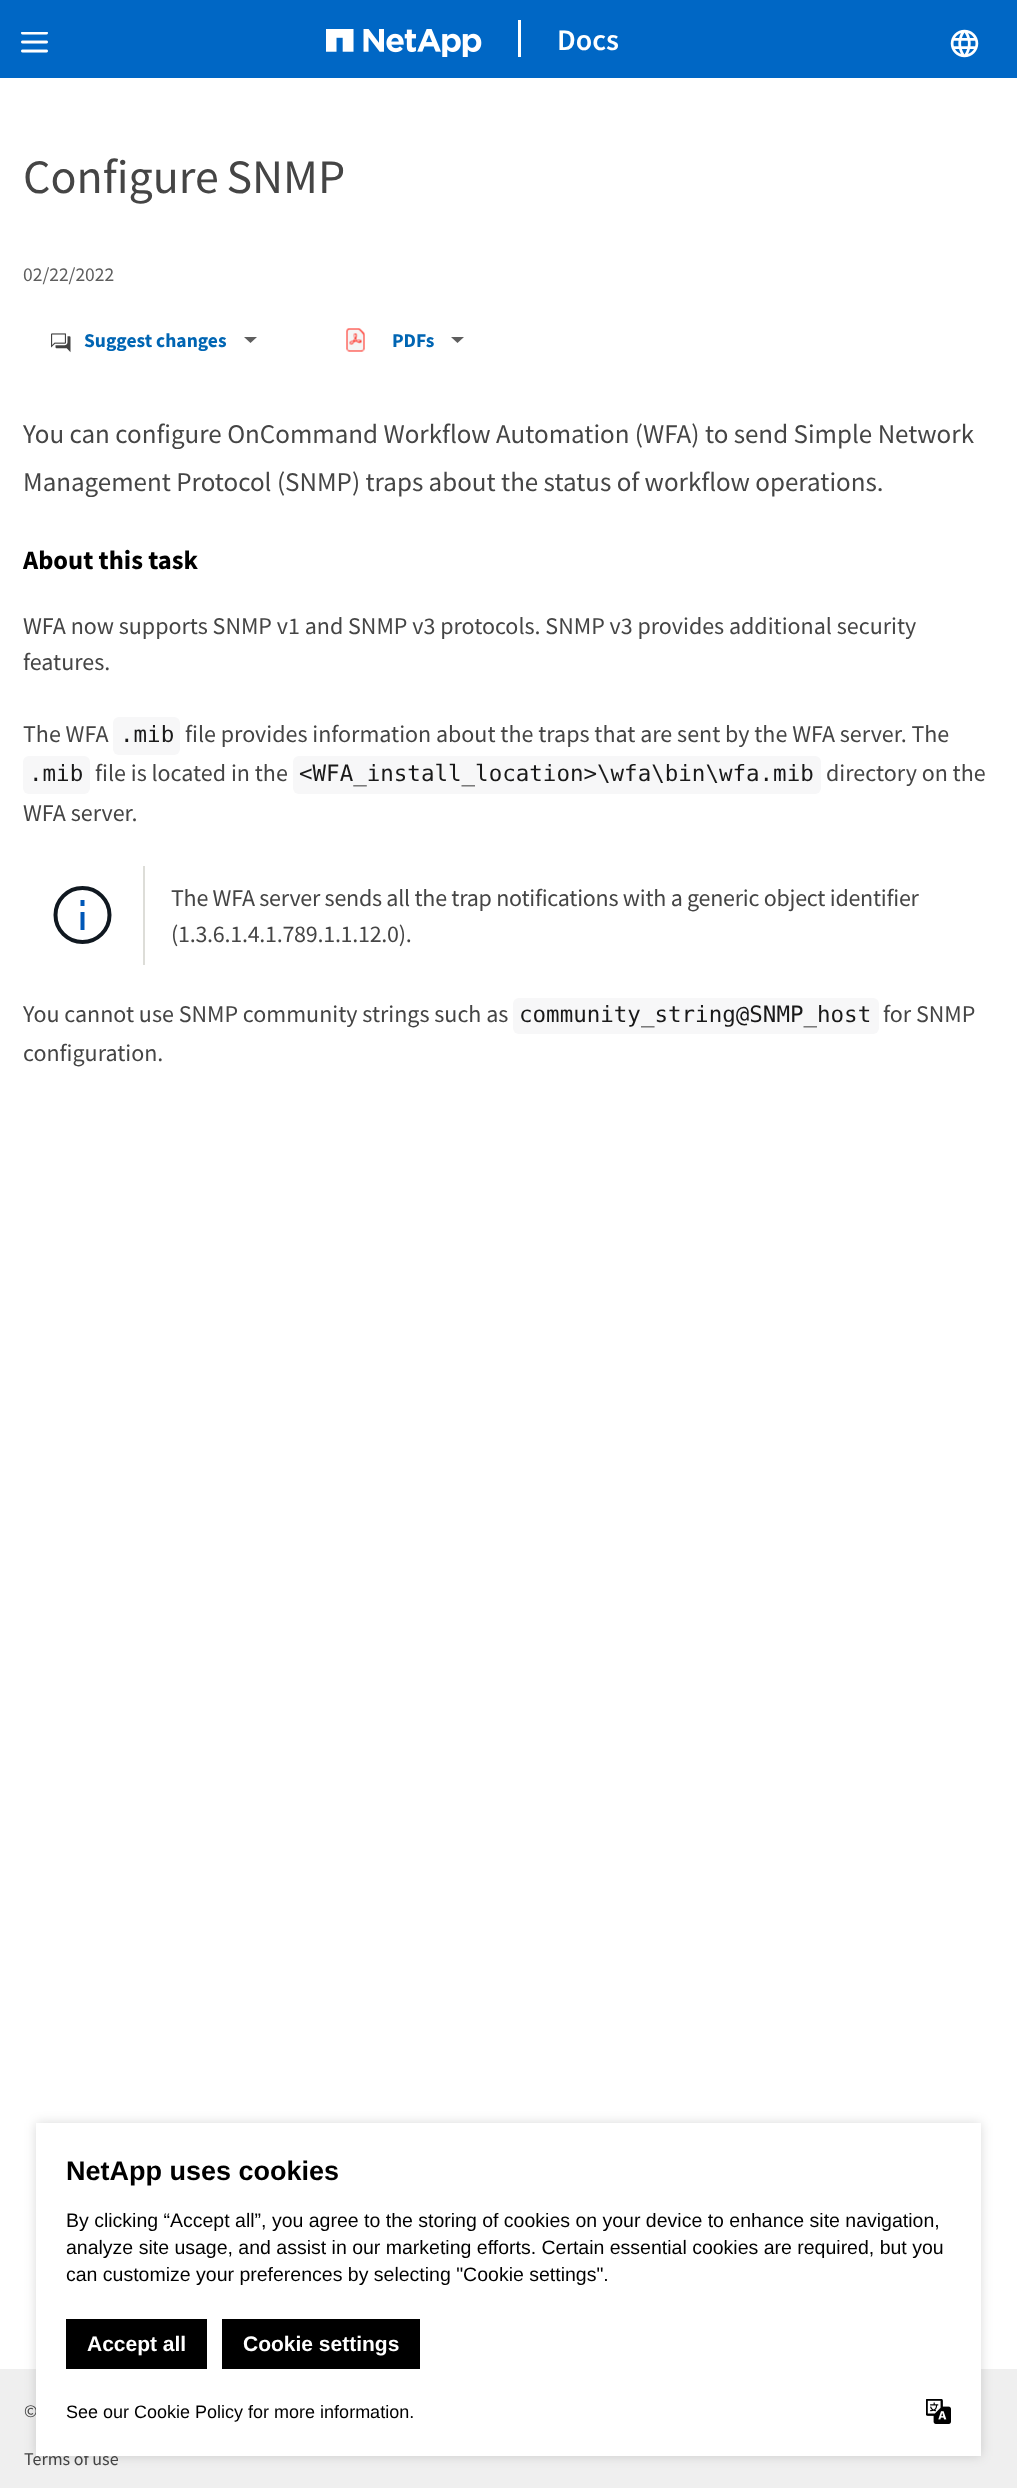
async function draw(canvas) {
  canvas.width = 1017
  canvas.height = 2488
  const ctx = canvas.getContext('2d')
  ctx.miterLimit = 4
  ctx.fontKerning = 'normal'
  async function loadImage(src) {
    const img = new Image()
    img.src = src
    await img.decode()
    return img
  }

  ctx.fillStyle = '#fff'
  ctx.fillRect(0, 0, 1017, 2488)
  ctx.fillStyle = '#0067c5'
  ctx.fillRect(0, 0, 1017, 78)
  ctx.drawImage(await loadImage('image0.png'), 21, 32, 27, 21)
  ctx.drawImage(await loadImage('image1.png'), 326, 29, 156, 28)
  ctx.fillStyle = '#fff'
  ctx.fillRect(518, 20, 3, 37)
  ctx.font = '600 30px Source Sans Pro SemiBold'
  ctx.fillText('Docs', 557, 50)
  ctx.drawImage(await loadImage('image2.png'), 950, 29, 29, 29)
  ctx.wordSpacing = '-2px'
  ctx.font = '48px Source Sans Pro'
  ctx.fillStyle = '#454545'
  ctx.fillText('Configure SNMP', 23, 193)
  ctx.wordSpacing = '0px'
  ctx.font = '19.5px Source Sans Pro'
  ctx.fillStyle = '#5e5e5e'
  ctx.fillText('02/22/2022', 23, 281)
  ctx.drawImage(await loadImage('image3.png'), 51, 333, 20, 20)
  ctx.font = 'bold 19.5px Source Sans Pro'
  ctx.fillStyle = '#0065b3'
  ctx.fillText('Suggest changes', 84, 347)
  ctx.fillStyle = '#5e5e5e'
  ctx.beginPath()
  ctx.moveTo(250.5, 343)
  ctx.lineTo(244, 337)
  ctx.lineTo(257, 337)
  ctx.closePath()
  ctx.fill()
  ctx.drawImage(await loadImage('image4.png'), 346, 328, 19, 24)
  ctx.fillStyle = '#0065b3'
  ctx.fillText('PDFs', 392, 347)
  ctx.fillStyle = '#5e5e5e'
  ctx.beginPath()
  ctx.moveTo(457.5, 343)
  ctx.lineTo(451, 337)
  ctx.lineTo(464, 337)
  ctx.closePath()
  ctx.fill()
  ctx.font = '27px Source Sans Pro'
  ctx.fillStyle = '#454545'
  ctx.fillText('You can configure OnCommand Workflow Automation (WFA) to send Simple Network', 23, 443)
  ctx.fillText('Management Protocol (SNMP) traps about the status of workflow operations.', 23, 491)
  ctx.font = 'bold 26.5px Source Sans Pro'
  ctx.fillStyle = '#000'
  ctx.fillText('About this task', 23, 569)
  ctx.font = '24px Source Sans Pro'
  ctx.fillStyle = '#454545'
  ctx.fillText('WFA now supports SNMP v1 and SNMP v3 protocols. SNMP v3 provides additional security', 23, 634)
  ctx.fillText('features.', 23, 670)
  ctx.fillText('The WFA', 23, 742)
  ctx.fillStyle = '#f7f7f8'
  ctx.beginPath()
  ctx.roundRect(113, 717, 67, 38, 6)
  ctx.fill()
  ctx.font = '22.5px DejaVu Sans Mono'
  ctx.fillStyle = '#191919'
  ctx.fillText('.mib', 120, 742)
  ctx.font = '24px Source Sans Pro'
  ctx.fillStyle = '#454545'
  ctx.fillText('file provides information about the traps that are sent by the WFA server. The', 185, 742)
  ctx.fillStyle = '#f7f7f8'
  ctx.beginPath()
  ctx.roundRect(23, 756, 67, 38, 6)
  ctx.fill()
  ctx.font = '22.5px DejaVu Sans Mono'
  ctx.fillStyle = '#191919'
  ctx.fillText('.mib', 29, 781)
  ctx.font = '24px Source Sans Pro'
  ctx.fillStyle = '#454545'
  ctx.fillText('file is located in the', 95, 781)
  ctx.fillStyle = '#f7f7f8'
  ctx.beginPath()
  ctx.roundRect(293, 756, 528, 38, 6)
  ctx.fill()
  ctx.font = '22.5px DejaVu Sans Mono'
  ctx.fillStyle = '#191919'
  ctx.fillText('<WFA_install_location>\\wfa\\bin\\wfa.mib', 299, 781)
  ctx.font = '24px Source Sans Pro'
  ctx.fillStyle = '#454545'
  ctx.fillText('directory on the', 826, 781)
  ctx.fillText('WFA server.', 23, 821)
  ctx.beginPath()
  ctx.arc(82.5, 915, 27, 0, 2 * Math.PI)
  ctx.strokeStyle = '#101820'
  ctx.lineWidth = 4
  ctx.stroke()
  ctx.beginPath()
  ctx.moveTo(82.5, 930)
  ctx.lineTo(82.5, 912)
  ctx.moveTo(82.5, 906)
  ctx.lineTo(82.5, 900)
  ctx.strokeStyle = '#0057b7'
  ctx.stroke()
  ctx.fillStyle = '#ddddd8'
  ctx.fillRect(143, 866, 2, 99)
  ctx.letterSpacing = '-0.25px'
  ctx.fillStyle = '#454545'
  ctx.fillText('The WFA server sends all the trap notifications with a generic object identifier', 171, 906)
  ctx.fillText('(1.3.6.1.4.1.789.1.1.12.0).', 171, 942)
  ctx.letterSpacing = '0px'
  ctx.fillText('You cannot use SNMP community strings such as', 23, 1022)
  ctx.fillStyle = '#f7f7f8'
  ctx.beginPath()
  ctx.roundRect(513, 998, 366, 36, 6)
  ctx.fill()
  ctx.font = '22.5px DejaVu Sans Mono'
  ctx.fillStyle = '#191919'
  ctx.fillText('community_string@SNMP_host', 519, 1022)
  ctx.font = '24px Source Sans Pro'
  ctx.fillStyle = '#454545'
  ctx.fillText('for SNMP', 883, 1022)
  ctx.fillText('configuration.', 23, 1061)
  ctx.fillStyle = '#efefef'
  ctx.fillRect(0, 2369, 1017, 119)
  ctx.font = '18px Source Sans Pro'
  ctx.fillStyle = '#454545'
  ctx.fillText('©', 24, 2417)
  ctx.fillText('Terms of use', 24, 2465)
  ctx.fillStyle = '#00000026'
  ctx.filter = 'blur(6px)'
  ctx.beginPath()
  ctx.rect(36, 2123, 945, 333)
  ctx.fill()
  ctx.filter = 'none'
  ctx.fillStyle = '#fff'
  ctx.fillRect(36, 2123, 945, 333)
  ctx.font = 'bold 27px Liberation Sans'
  ctx.fillStyle = '#000'
  ctx.fillText('NetApp uses cookies', 66, 2180)
  ctx.font = '19.5px Liberation Sans'
  ctx.fillText('By clicking “Accept all”, you agree to the storing of cookies on your device to enhance site navigation,', 66, 2227)
  ctx.fillText('analyze site usage, and assist in our marketing efforts. Certain essential cookies are required, but you', 66, 2254)
  ctx.fillText('can customize your preferences by selecting "Cookie settings".', 66, 2281)
  ctx.fillRect(66, 2319, 141, 50)
  ctx.font = 'bold 21px Liberation Sans'
  ctx.fillStyle = '#fff'
  ctx.fillText('Accept all', 87, 2351)
  ctx.fillStyle = '#000'
  ctx.fillRect(222, 2319, 198, 50)
  ctx.fillStyle = '#fff'
  ctx.fillText('Cookie settings', 243, 2351)
  ctx.font = '18px Liberation Sans'
  ctx.fillStyle = '#000'
  ctx.fillText('See our Cookie Policy for more information.', 66, 2418)
  ctx.drawImage(await loadImage('image5.png'), 926, 2399, 25, 25)
}

draw(document.querySelector('canvas'))
